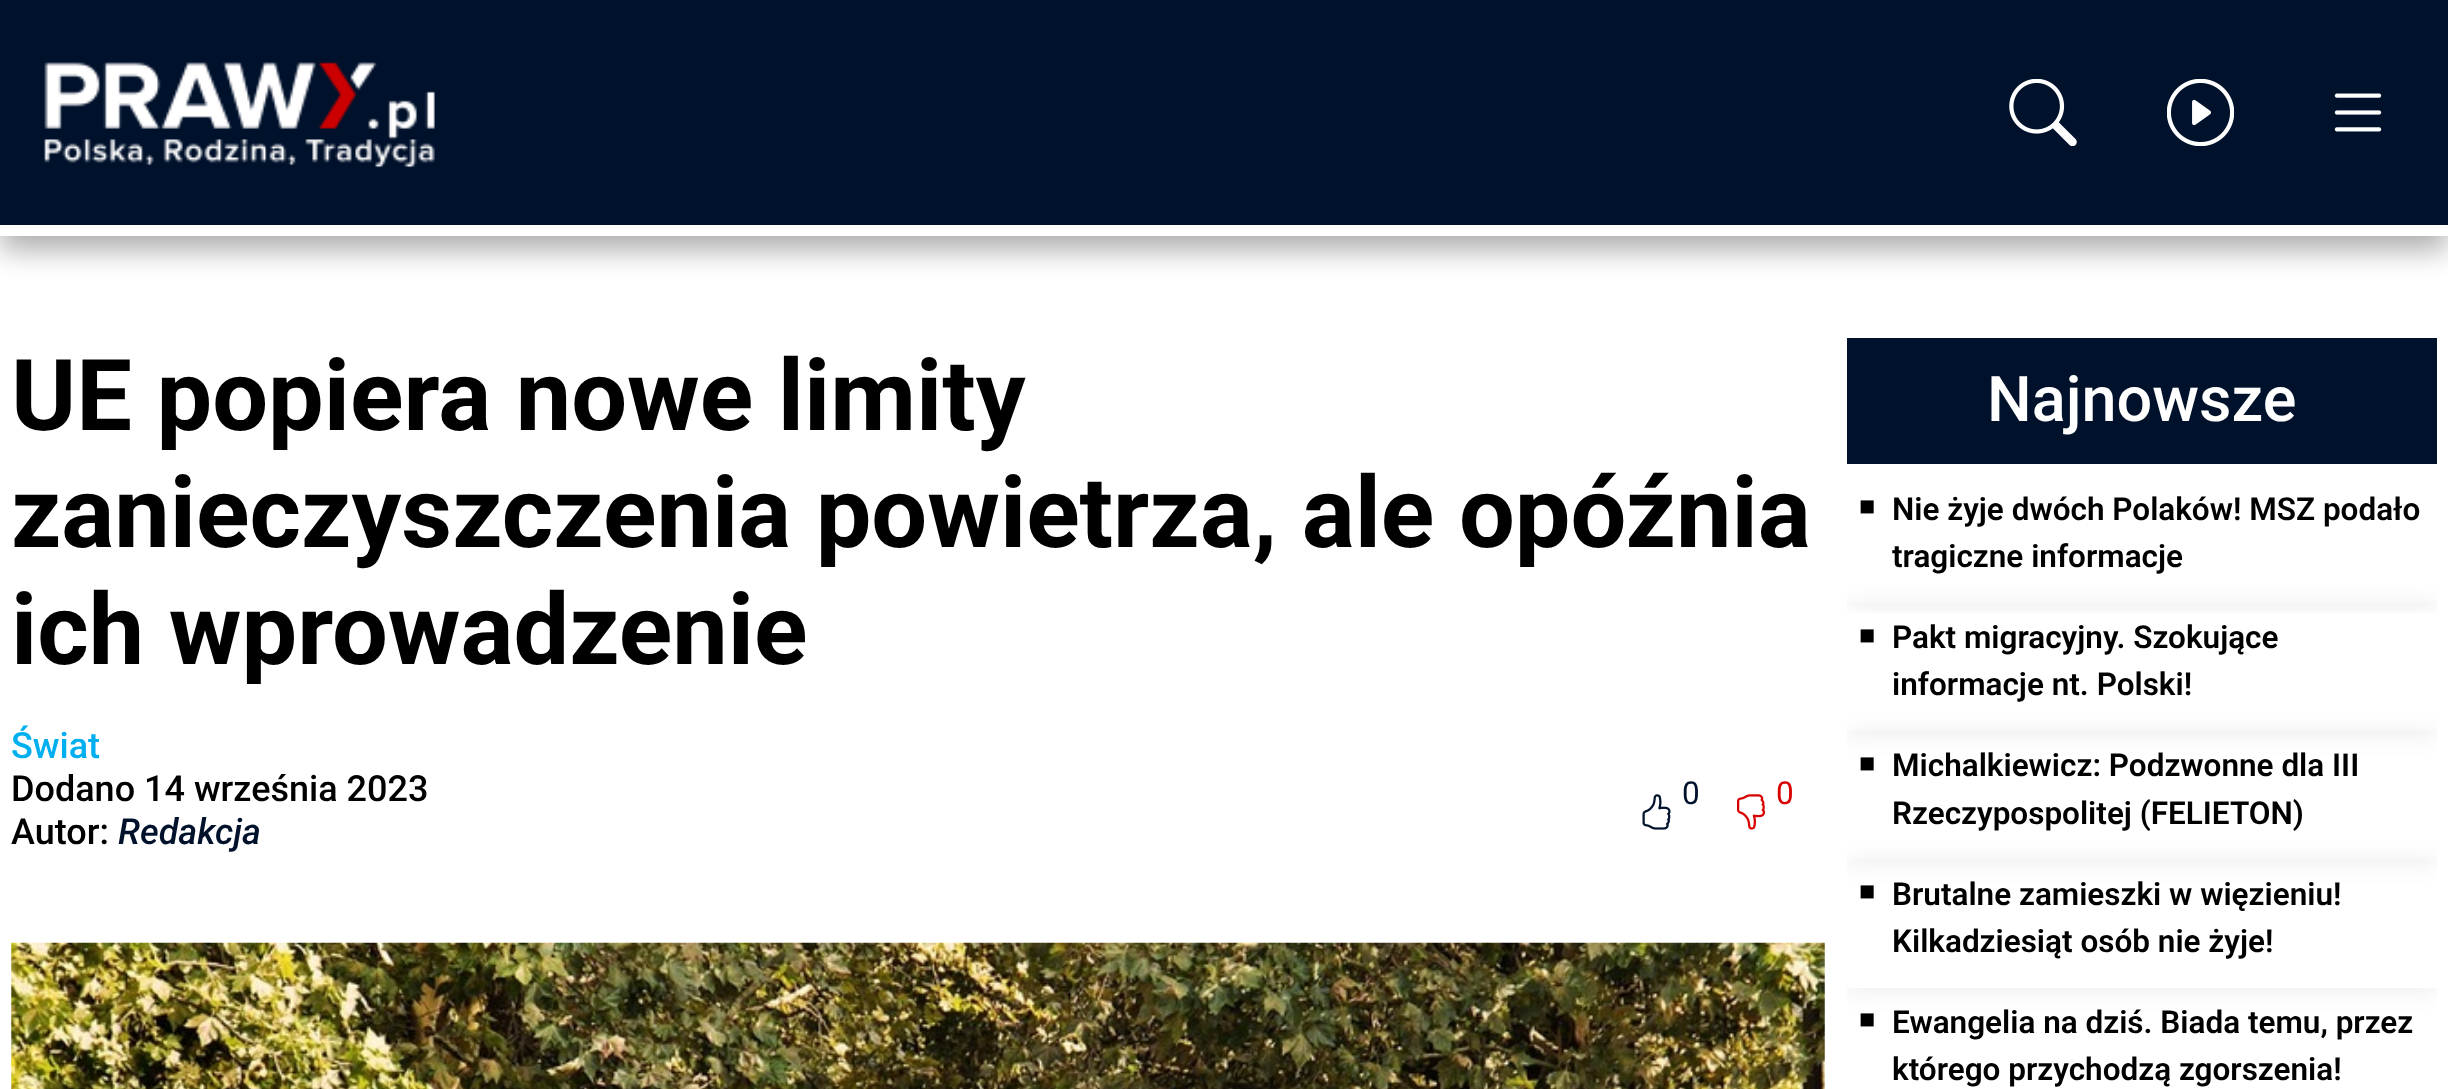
async function draw(canvas) {
  canvas.width = 2448
  canvas.height = 1089
  const ctx = canvas.getContext('2d')
  ctx.miterLimit = 4
  ctx.fontKerning = 'normal'
  async function loadImage(src) {
    const img = new Image()
    img.src = src
    await img.decode()
    return img
  }

  ctx.fillStyle = '#fff'
  ctx.fillRect(0, 0, 2448, 1089)
  ctx.fillStyle = '#00000052'
  ctx.filter = 'blur(14.5px)'
  ctx.beginPath()
  ctx.rect(0, 14, 2448, 236)
  ctx.fill()
  ctx.filter = 'none'
  ctx.fillStyle = '#00112b'
  ctx.fillRect(0, 0, 2448, 225)
  ctx.fillStyle = '#fff'
  ctx.fillRect(0, 225, 2448, 11)
  ctx.drawImage(await loadImage('image0.png'), 44, 62, 391, 106)
  ctx.drawImage(await loadImage('image1.png'), 2009, 79, 68, 67)
  ctx.drawImage(await loadImage('image2.png'), 2167, 79, 67, 67)
  ctx.drawImage(await loadImage('image3.png'), 2334, 93, 48, 39)
  ctx.font = 'bold 99px Roboto'
  ctx.fillStyle = '#000'
  ctx.fillText('UE popiera nowe limity', 11, 430)
  ctx.fillText('zanieczyszczenia powietrza, ale opóźnia', 11, 547)
  ctx.fillText('ich wprowadzenie', 11, 664)
  ctx.font = '500 36px Roboto'
  ctx.fillStyle = '#00aff0'
  ctx.fillText('Świat', 11, 758)
  ctx.fillStyle = '#000'
  ctx.fillText('Dodano 14 września 2023', 11, 801)
  ctx.fillText('Autor:', 11, 844)
  ctx.font = 'italic 500 36px Roboto'
  ctx.fillStyle = '#00112b'
  ctx.fillText('Redakcja', 118, 844)
  ctx.drawImage(await loadImage('image4.png'), 1642, 794, 29, 36)
  ctx.font = '31.5px Roboto'
  ctx.fillText('0', 1682, 804)
  ctx.drawImage(await loadImage('image5.png'), 1737, 794, 28, 36)
  ctx.fillStyle = '#d80000'
  ctx.fillText('0', 1776, 804)
  ctx.save()
  ctx.beginPath()
  ctx.rect(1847, 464, 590, 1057)
  ctx.clip()
  ctx.beginPath()
  ctx.moveTo(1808, 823)
  ctx.lineTo(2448, 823)
  ctx.lineTo(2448, 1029)
  ctx.lineTo(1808, 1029)
  ctx.closePath()
  ctx.moveTo(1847, 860)
  ctx.lineTo(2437, 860)
  ctx.lineTo(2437, 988)
  ctx.lineTo(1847, 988)
  ctx.closePath()
  ctx.clip('evenodd')
  ctx.fillStyle = '#00000014'
  ctx.filter = 'blur(12.5px)'
  ctx.beginPath()
  ctx.rect(1847, 862, 590, 128)
  ctx.fill()
  ctx.filter = 'none'
  ctx.restore()
  ctx.drawImage(await loadImage('image6.png'), 11, 942, 1814, 147)
  ctx.fillStyle = '#00112b'
  ctx.fillRect(1847, 338, 590, 126)
  ctx.font = '500 63px Roboto'
  ctx.fillStyle = '#fff'
  ctx.fillText('Najnowsze', 1987, 421)
  ctx.save()
  ctx.beginPath()
  ctx.rect(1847, 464, 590, 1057)
  ctx.clip()
  ctx.beginPath()
  ctx.rect(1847, 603, 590, 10)
  ctx.clip()
  ctx.fillStyle = '#00000014'
  ctx.filter = 'blur(12.5px)'
  ctx.beginPath()
  ctx.rect(1847, 466, 590, 139)
  ctx.fill()
  ctx.filter = 'none'
  ctx.restore()
  ctx.font = '27px Liberation Sans'
  ctx.fillStyle = '#000'
  ctx.fillText('■', 1859, 515)
  ctx.font = '600 31.5px Roboto'
  ctx.fillText('Nie żyje dwóch Polaków! MSZ podało', 1892, 520)
  ctx.save()
  ctx.beginPath()
  ctx.rect(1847, 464, 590, 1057)
  ctx.clip()
  ctx.beginPath()
  ctx.moveTo(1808, 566)
  ctx.lineTo(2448, 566)
  ctx.lineTo(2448, 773)
  ctx.lineTo(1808, 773)
  ctx.closePath()
  ctx.moveTo(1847, 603)
  ctx.lineTo(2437, 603)
  ctx.lineTo(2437, 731)
  ctx.lineTo(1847, 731)
  ctx.closePath()
  ctx.clip('evenodd')
  ctx.fillStyle = '#00000014'
  ctx.filter = 'blur(12.5px)'
  ctx.beginPath()
  ctx.rect(1847, 605, 590, 129)
  ctx.fill()
  ctx.filter = 'none'
  ctx.restore()
  ctx.fillText('tragiczne informacje', 1892, 567)
  ctx.font = '27px Liberation Sans'
  ctx.fillText('■', 1859, 644)
  ctx.font = '600 31.5px Roboto'
  ctx.fillText('Pakt migracyjny. Szokujące', 1892, 648)
  ctx.save()
  ctx.beginPath()
  ctx.rect(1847, 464, 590, 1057)
  ctx.clip()
  ctx.beginPath()
  ctx.moveTo(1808, 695)
  ctx.lineTo(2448, 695)
  ctx.lineTo(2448, 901)
  ctx.lineTo(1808, 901)
  ctx.closePath()
  ctx.moveTo(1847, 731)
  ctx.lineTo(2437, 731)
  ctx.lineTo(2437, 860)
  ctx.lineTo(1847, 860)
  ctx.closePath()
  ctx.clip('evenodd')
  ctx.fillStyle = '#00000014'
  ctx.filter = 'blur(12.5px)'
  ctx.beginPath()
  ctx.rect(1847, 734, 590, 128)
  ctx.fill()
  ctx.filter = 'none'
  ctx.restore()
  ctx.fillText('informacje nt. Polski!', 1892, 695)
  ctx.font = '27px Liberation Sans'
  ctx.fillText('■', 1859, 772)
  ctx.font = '600 31.5px Roboto'
  ctx.fillText('Michalkiewicz: Podzwonne dla III', 1892, 776)
  ctx.fillText('Rzeczypospolitej (FELIETON)', 1892, 824)
  ctx.font = '27px Liberation Sans'
  ctx.fillText('■', 1859, 900)
  ctx.font = '600 31.5px Roboto'
  ctx.fillText('Brutalne zamieszki w więzieniu!', 1892, 905)
  ctx.fillText('Kilkadziesiąt osób nie żyje!', 1892, 952)
  ctx.font = '27px Liberation Sans'
  ctx.fillText('■', 1859, 1028)
  ctx.font = '600 31.5px Roboto'
  ctx.fillText('Ewangelia na dziś. Biada temu, przez', 1892, 1033)
  ctx.fillText('którego przychodzą zgorszenia!', 1892, 1080)
}

draw(document.querySelector('canvas'))
